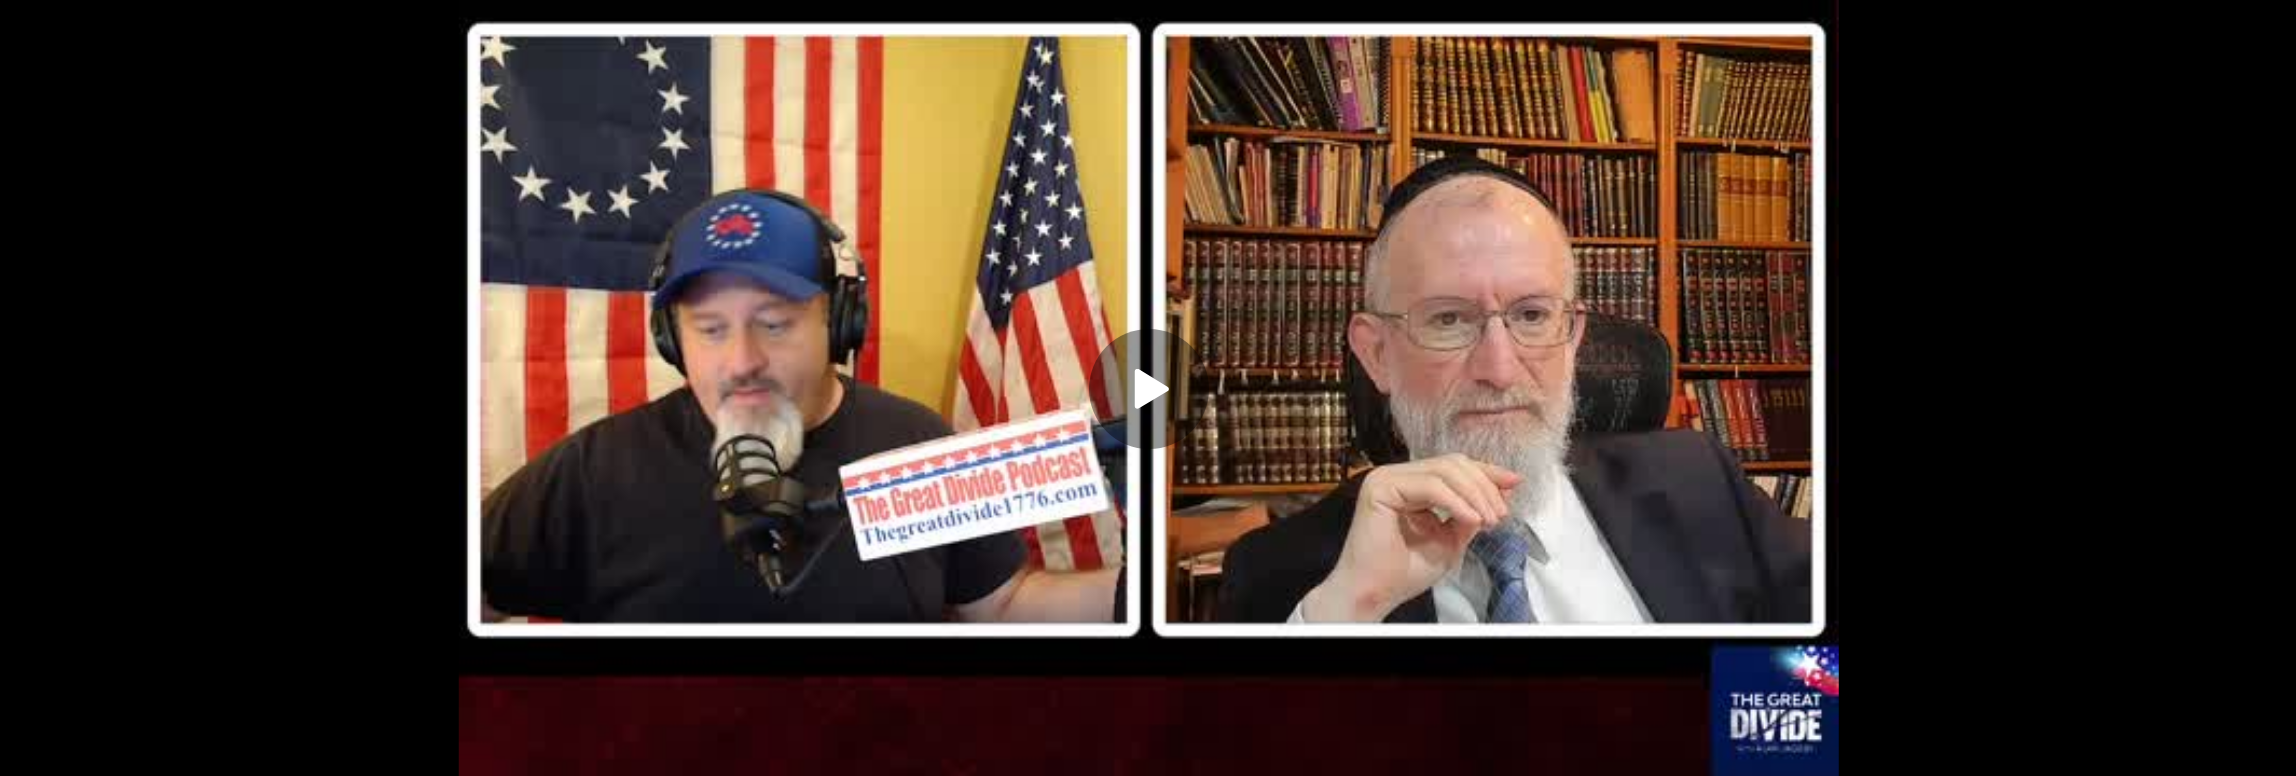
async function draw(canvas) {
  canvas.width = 2296
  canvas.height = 776
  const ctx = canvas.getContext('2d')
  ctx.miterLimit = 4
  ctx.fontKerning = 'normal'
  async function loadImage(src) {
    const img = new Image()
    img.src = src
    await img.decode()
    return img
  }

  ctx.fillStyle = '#000'
  ctx.fillRect(0, 0, 2296, 776)
  ctx.drawImage(await loadImage('image0.png'), 458, 0, 1381, 776)
  ctx.fillStyle = '#00000066'
  ctx.beginPath()
  ctx.arc(1149, 389, 60, 0, 2 * Math.PI)
  ctx.fill()
  ctx.fillStyle = '#fff'
  ctx.beginPath()
  ctx.moveTo(1166, 389)
  ctx.lineTo(1137.5, 371.5)
  ctx.lineTo(1137.5, 406)
  ctx.closePath()
  ctx.fill()
  ctx.save()
  ctx.beginPath()
  ctx.rect(1129, 369, 40, 40)
  ctx.clip()
  ctx.beginPath()
  ctx.moveTo(1166, 389)
  ctx.lineTo(1137.5, 371.5)
  ctx.lineTo(1137.5, 406)
  ctx.closePath()
  ctx.strokeStyle = '#fff'
  ctx.lineWidth = 5.5
  ctx.lineJoin = 'round'
  ctx.stroke()
  ctx.restore()
}

draw(document.querySelector('canvas'))
